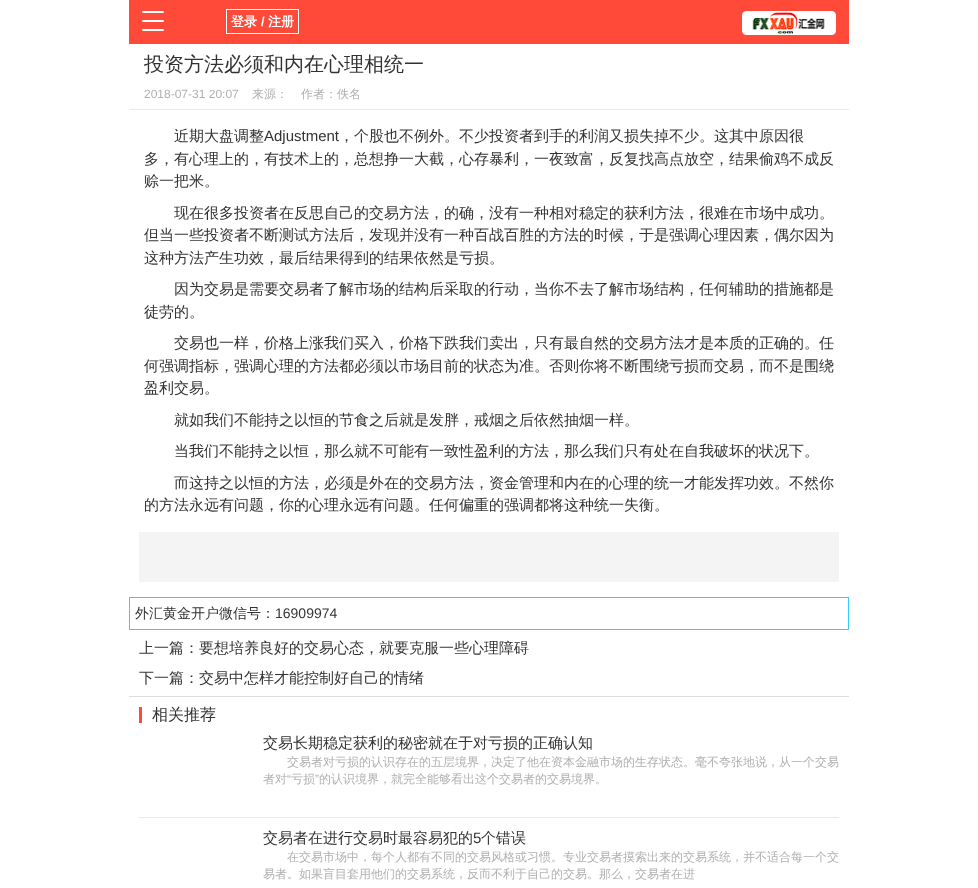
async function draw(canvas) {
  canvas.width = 978
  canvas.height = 888
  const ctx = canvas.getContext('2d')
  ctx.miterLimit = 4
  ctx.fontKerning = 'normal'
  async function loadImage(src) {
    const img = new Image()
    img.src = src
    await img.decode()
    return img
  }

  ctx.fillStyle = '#fff'
  ctx.fillRect(0, 0, 978, 888)
  ctx.fillStyle = '#ff4939'
  ctx.fillRect(129, 0, 720, 44)
  ctx.drawImage(await loadImage('image0.png'), 142, 11, 22, 20)
  ctx.drawImage(await loadImage('image1.png'), 742, 11, 94, 24)
  ctx.strokeStyle = '#fff'
  ctx.strokeRect(226.5, 9.5, 72, 24)
  ctx.font = 'bold 13px WenQuanYi Zen Hei'
  ctx.fillStyle = '#fff'
  ctx.fillText('登录', 231, 26)
  ctx.font = 'bold 13px Liberation Sans'
  ctx.fillText('/', 261, 26)
  ctx.font = 'bold 13px WenQuanYi Zen Hei'
  ctx.fillText('注册', 268, 26)
  ctx.fillStyle = '#e9e9e9'
  ctx.fillRect(129, 109, 720, 1)
  ctx.font = '500 20px WenQuanYi Zen Hei'
  ctx.fillStyle = '#333'
  ctx.fillText('投资方法必须和内在心理相统一', 144, 71)
  ctx.font = '12px Liberation Sans'
  ctx.fillStyle = '#b0b0b0'
  ctx.fillText('2018-07-31 20:07', 144, 98)
  ctx.font = '500 12px WenQuanYi Zen Hei'
  ctx.fillText('来源：', 252, 98)
  ctx.fillText('作者：佚名', 301, 98)
  ctx.font = '500 15px WenQuanYi Zen Hei'
  ctx.fillStyle = '#333'
  ctx.fillText('近期大盘调整', 174, 141)
  ctx.font = '15px Liberation Sans'
  ctx.fillText('Adjustment', 264, 141)
  ctx.font = '500 15px WenQuanYi Zen Hei'
  ctx.fillText('，个股也不例外。不少投资者到手的利润又损失掉不少。这其中原因很', 339, 141)
  ctx.fillText('多，有心理上的，有技术上的，总想挣一大截，心存暴利，一夜致富，反复找高点放空，结果偷鸡不成反', 144, 164)
  ctx.fillText('赊一把米。', 144, 186)
  ctx.fillText('现在很多投资者在反思自己的交易方法，的确，没有一种相对稳定的获利方法，很难在市场中成功。', 174, 218)
  ctx.fillText('但当一些投资者不断测试方法后，发现并没有一种百战百胜的方法的时候，于是强调心理因素，偶尔因为', 144, 240)
  ctx.fillText('这种方法产生功效，最后结果得到的结果依然是亏损。', 144, 263)
  ctx.fillText('因为交易是需要交易者了解市场的结构后采取的行动，当你不去了解市场结构，任何辅助的措施都是', 174, 294)
  ctx.fillText('徒劳的。', 144, 317)
  ctx.fillText('交易也一样，价格上涨我们买入，价格下跌我们卖出，只有最自然的交易方法才是本质的正确的。任', 174, 348)
  ctx.fillText('何强调指标，强调心理的方法都必须以市场目前的状态为准。否则你将不断围绕亏损而交易，而不是围绕', 144, 371)
  ctx.fillText('盈利交易。', 144, 393)
  ctx.fillText('就如我们不能持之以恒的节食之后就是发胖，戒烟之后依然抽烟一样。', 174, 425)
  ctx.fillText('当我们不能持之以恒，那么就不可能有一致性盈利的方法，那么我们只有处在自我破坏的状况下。', 174, 456)
  ctx.fillText('而这持之以恒的方法，必须是外在的交易方法，资金管理和内在的心理的统一才能发挥功效。不然你', 174, 488)
  ctx.fillText('的方法永远有问题，你的心理永远有问题。任何偏重的强调都将这种统一失衡。', 144, 510)
  ctx.fillStyle = '#f4f4f4'
  ctx.fillRect(139, 532, 700, 50)
  ctx.strokeStyle = '#3cf'
  ctx.strokeRect(129.5, 597.5, 719, 32)
  ctx.font = '500 14px WenQuanYi Zen Hei'
  ctx.fillStyle = '#333'
  ctx.fillText('外汇黄金开户微信号：', 135, 618)
  ctx.font = '14px Liberation Sans'
  ctx.fillText('16909974', 275, 618)
  ctx.fillStyle = '#ddd'
  ctx.fillRect(129, 696, 720, 1)
  ctx.font = '500 15px WenQuanYi Zen Hei'
  ctx.fillStyle = '#333'
  ctx.fillText('上一篇：要想培养良好的交易心态，就要克服一些心理障碍', 139, 653)
  ctx.fillText('下一篇：交易中怎样才能控制好自己的情绪', 139, 683)
  ctx.fillStyle = '#ff4939'
  ctx.fillRect(139, 707, 3, 16)
  ctx.font = '500 16px WenQuanYi Zen Hei'
  ctx.fillStyle = '#333'
  ctx.fillText('相关推荐', 152, 720)
  ctx.fillStyle = '#e9e9e9'
  ctx.fillRect(139, 817, 700, 1)
  ctx.font = '500 15px WenQuanYi Zen Hei'
  ctx.fillStyle = '#333'
  ctx.fillText('交易长期稳定获利的秘密就在于对亏损的正确认知', 263, 748)
  ctx.font = '500 12px WenQuanYi Zen Hei'
  ctx.fillStyle = '#b0b0b0'
  ctx.fillText('交易者对亏损的认识存在的五层境界，决定了他在资本金融市场的生存状态。毫不夸张地说，从一个交易', 287, 766)
  ctx.fillText('者对', 263, 783)
  ctx.font = '12px Liberation Sans'
  ctx.fillText('“', 287, 783)
  ctx.font = '500 12px WenQuanYi Zen Hei'
  ctx.fillText('亏损', 291, 783)
  ctx.font = '12px Liberation Sans'
  ctx.fillText('”', 315, 783)
  ctx.font = '500 12px WenQuanYi Zen Hei'
  ctx.fillText('的认识境界，就完全能够看出这个交易者的交易境界。', 319, 783)
  ctx.font = '500 15px WenQuanYi Zen Hei'
  ctx.fillStyle = '#333'
  ctx.fillText('交易者在进行交易时最容易犯的', 263, 843)
  ctx.font = '15px Liberation Sans'
  ctx.fillText('5', 473, 843)
  ctx.font = '500 15px WenQuanYi Zen Hei'
  ctx.fillText('个错误', 481, 843)
  ctx.font = '500 12px WenQuanYi Zen Hei'
  ctx.fillStyle = '#b0b0b0'
  ctx.fillText('在交易市场中，每个人都有不同的交易风格或习惯。专业交易者摸索出来的交易系统，并不适合每一个交', 287, 861)
  ctx.fillText('易者。如果盲目套用他们的交易系统，反而不利于自己的交易。那么，交易者在进', 263, 878)
}

draw(document.querySelector('canvas'))
